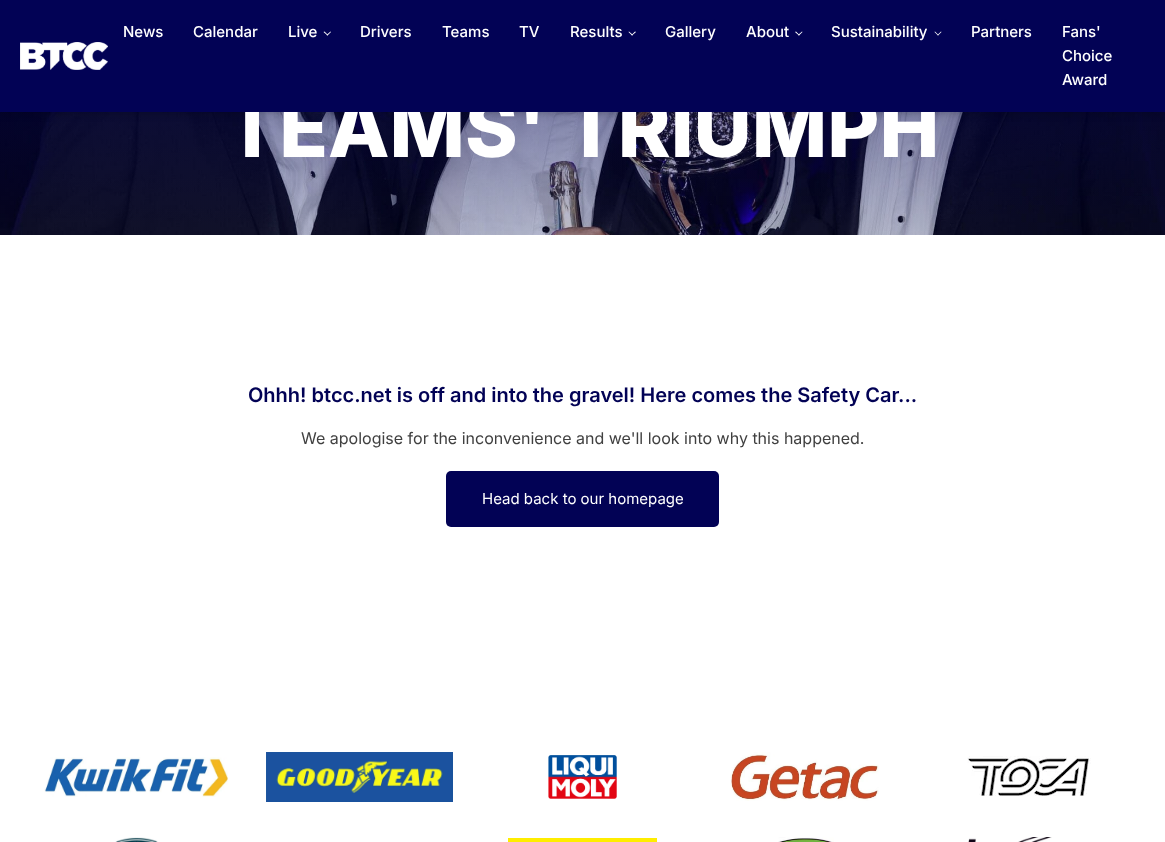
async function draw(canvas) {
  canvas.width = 1165
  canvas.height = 842
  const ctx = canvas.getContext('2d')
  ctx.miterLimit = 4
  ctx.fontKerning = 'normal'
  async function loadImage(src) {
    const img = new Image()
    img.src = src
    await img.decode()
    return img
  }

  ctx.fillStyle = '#fff'
  ctx.fillRect(0, 0, 1165, 842)
  ctx.drawImage(await loadImage('image1.png'), 0, 112, 1165, 123)
  ctx.fillStyle = '#0000004d'
  ctx.filter = 'blur(5px)'
  ctx.beginPath()
  ctx.rect(0, 0, 1165, 112)
  ctx.fill()
  ctx.filter = 'none'
  ctx.font = '800 80px Inter'
  ctx.fillStyle = '#fff'
  ctx.fillText('TEAMS\' TRIUMPH', 225, 157)
  ctx.fillStyle = '#020255'
  ctx.fillRect(0, 0, 1165, 112)
  ctx.drawImage(await loadImage('image0.png'), 20, 42, 88, 28)
  ctx.font = '500 15px Inter'
  ctx.fillStyle = '#fff'
  ctx.fillText('News', 123, 37)
  ctx.fillText('Calendar', 193, 37)
  ctx.fillText('Live', 288, 37)
  ctx.beginPath()
  ctx.moveTo(331, 32)
  ctx.lineTo(327.5, 35.5)
  ctx.lineTo(326.5, 35)
  ctx.lineTo(330.5, 31.5)
  ctx.closePath()
  ctx.fill()
  ctx.beginPath()
  ctx.moveTo(328, 35)
  ctx.lineTo(327.5, 35.5)
  ctx.lineTo(323.5, 32)
  ctx.lineTo(324.5, 31.5)
  ctx.closePath()
  ctx.fill()
  ctx.fillText('Drivers', 360, 37)
  ctx.fillText('Teams', 442, 37)
  ctx.fillText('TV', 519, 37)
  ctx.fillText('Results', 570, 37)
  ctx.beginPath()
  ctx.moveTo(636, 32)
  ctx.lineTo(632, 35.5)
  ctx.lineTo(631.5, 35)
  ctx.lineTo(635, 31.5)
  ctx.closePath()
  ctx.fill()
  ctx.beginPath()
  ctx.moveTo(633, 35)
  ctx.lineTo(632, 35.5)
  ctx.lineTo(628.5, 32)
  ctx.lineTo(629, 31.5)
  ctx.closePath()
  ctx.fill()
  ctx.fillText('Gallery', 665, 37)
  ctx.fillText('About', 746, 37)
  ctx.beginPath()
  ctx.moveTo(802.5, 32)
  ctx.lineTo(799, 35.5)
  ctx.lineTo(798, 35)
  ctx.lineTo(802, 31.5)
  ctx.closePath()
  ctx.fill()
  ctx.beginPath()
  ctx.moveTo(799.5, 35)
  ctx.lineTo(799, 35.5)
  ctx.lineTo(795, 32)
  ctx.lineTo(796, 31.5)
  ctx.closePath()
  ctx.fill()
  ctx.fillText('Sustainability', 831, 37)
  ctx.beginPath()
  ctx.moveTo(941.5, 32)
  ctx.lineTo(938, 35.5)
  ctx.lineTo(937.5, 35)
  ctx.lineTo(941, 31.5)
  ctx.closePath()
  ctx.fill()
  ctx.beginPath()
  ctx.moveTo(938.5, 35)
  ctx.lineTo(938, 35.5)
  ctx.lineTo(934.5, 32)
  ctx.lineTo(935, 31.5)
  ctx.closePath()
  ctx.fill()
  ctx.fillText('Partners', 971, 37)
  ctx.fillText('Fans\'', 1062, 37)
  ctx.fillText('Choice', 1062, 61)
  ctx.fillText('Award', 1062, 85)
  ctx.font = '600 20px Inter'
  ctx.fillStyle = '#020255'
  ctx.fillText('Ohhh! btcc.net is off and into the gravel! Here comes the Safety Car...', 248, 402)
  ctx.font = '16px Inter'
  ctx.fillStyle = '#404040'
  ctx.fillText('We apologise for the inconvenience and we\'ll look into why this happened.', 301, 444)
  ctx.fillStyle = '#020255'
  ctx.beginPath()
  ctx.roundRect(446, 471, 273, 56, 5)
  ctx.fill()
  ctx.font = '15px Inter'
  ctx.fillStyle = '#fff'
  ctx.fillText('Head back to our homepage', 482, 504)
  ctx.drawImage(await loadImage('image2.png'), 44, 757, 185, 40)
  ctx.drawImage(await loadImage('image3.png'), 266, 752, 187, 50)
  ctx.drawImage(await loadImage('image4.png'), 548, 755, 69, 44)
  ctx.drawImage(await loadImage('image5.png'), 730, 752, 149, 49)
  ctx.drawImage(await loadImage('image6.png'), 967, 756, 124, 40)
  ctx.drawImage(await loadImage('image7.png'), 115, 837, 43, 5)
  ctx.fillStyle = '#ffed00'
  ctx.fillRect(508, 838, 149, 4)
  ctx.drawImage(await loadImage('image8.png'), 778, 837, 56, 5)
  ctx.drawImage(await loadImage('image9.png'), 968, 837, 84, 5)
}

draw(document.querySelector('canvas'))
